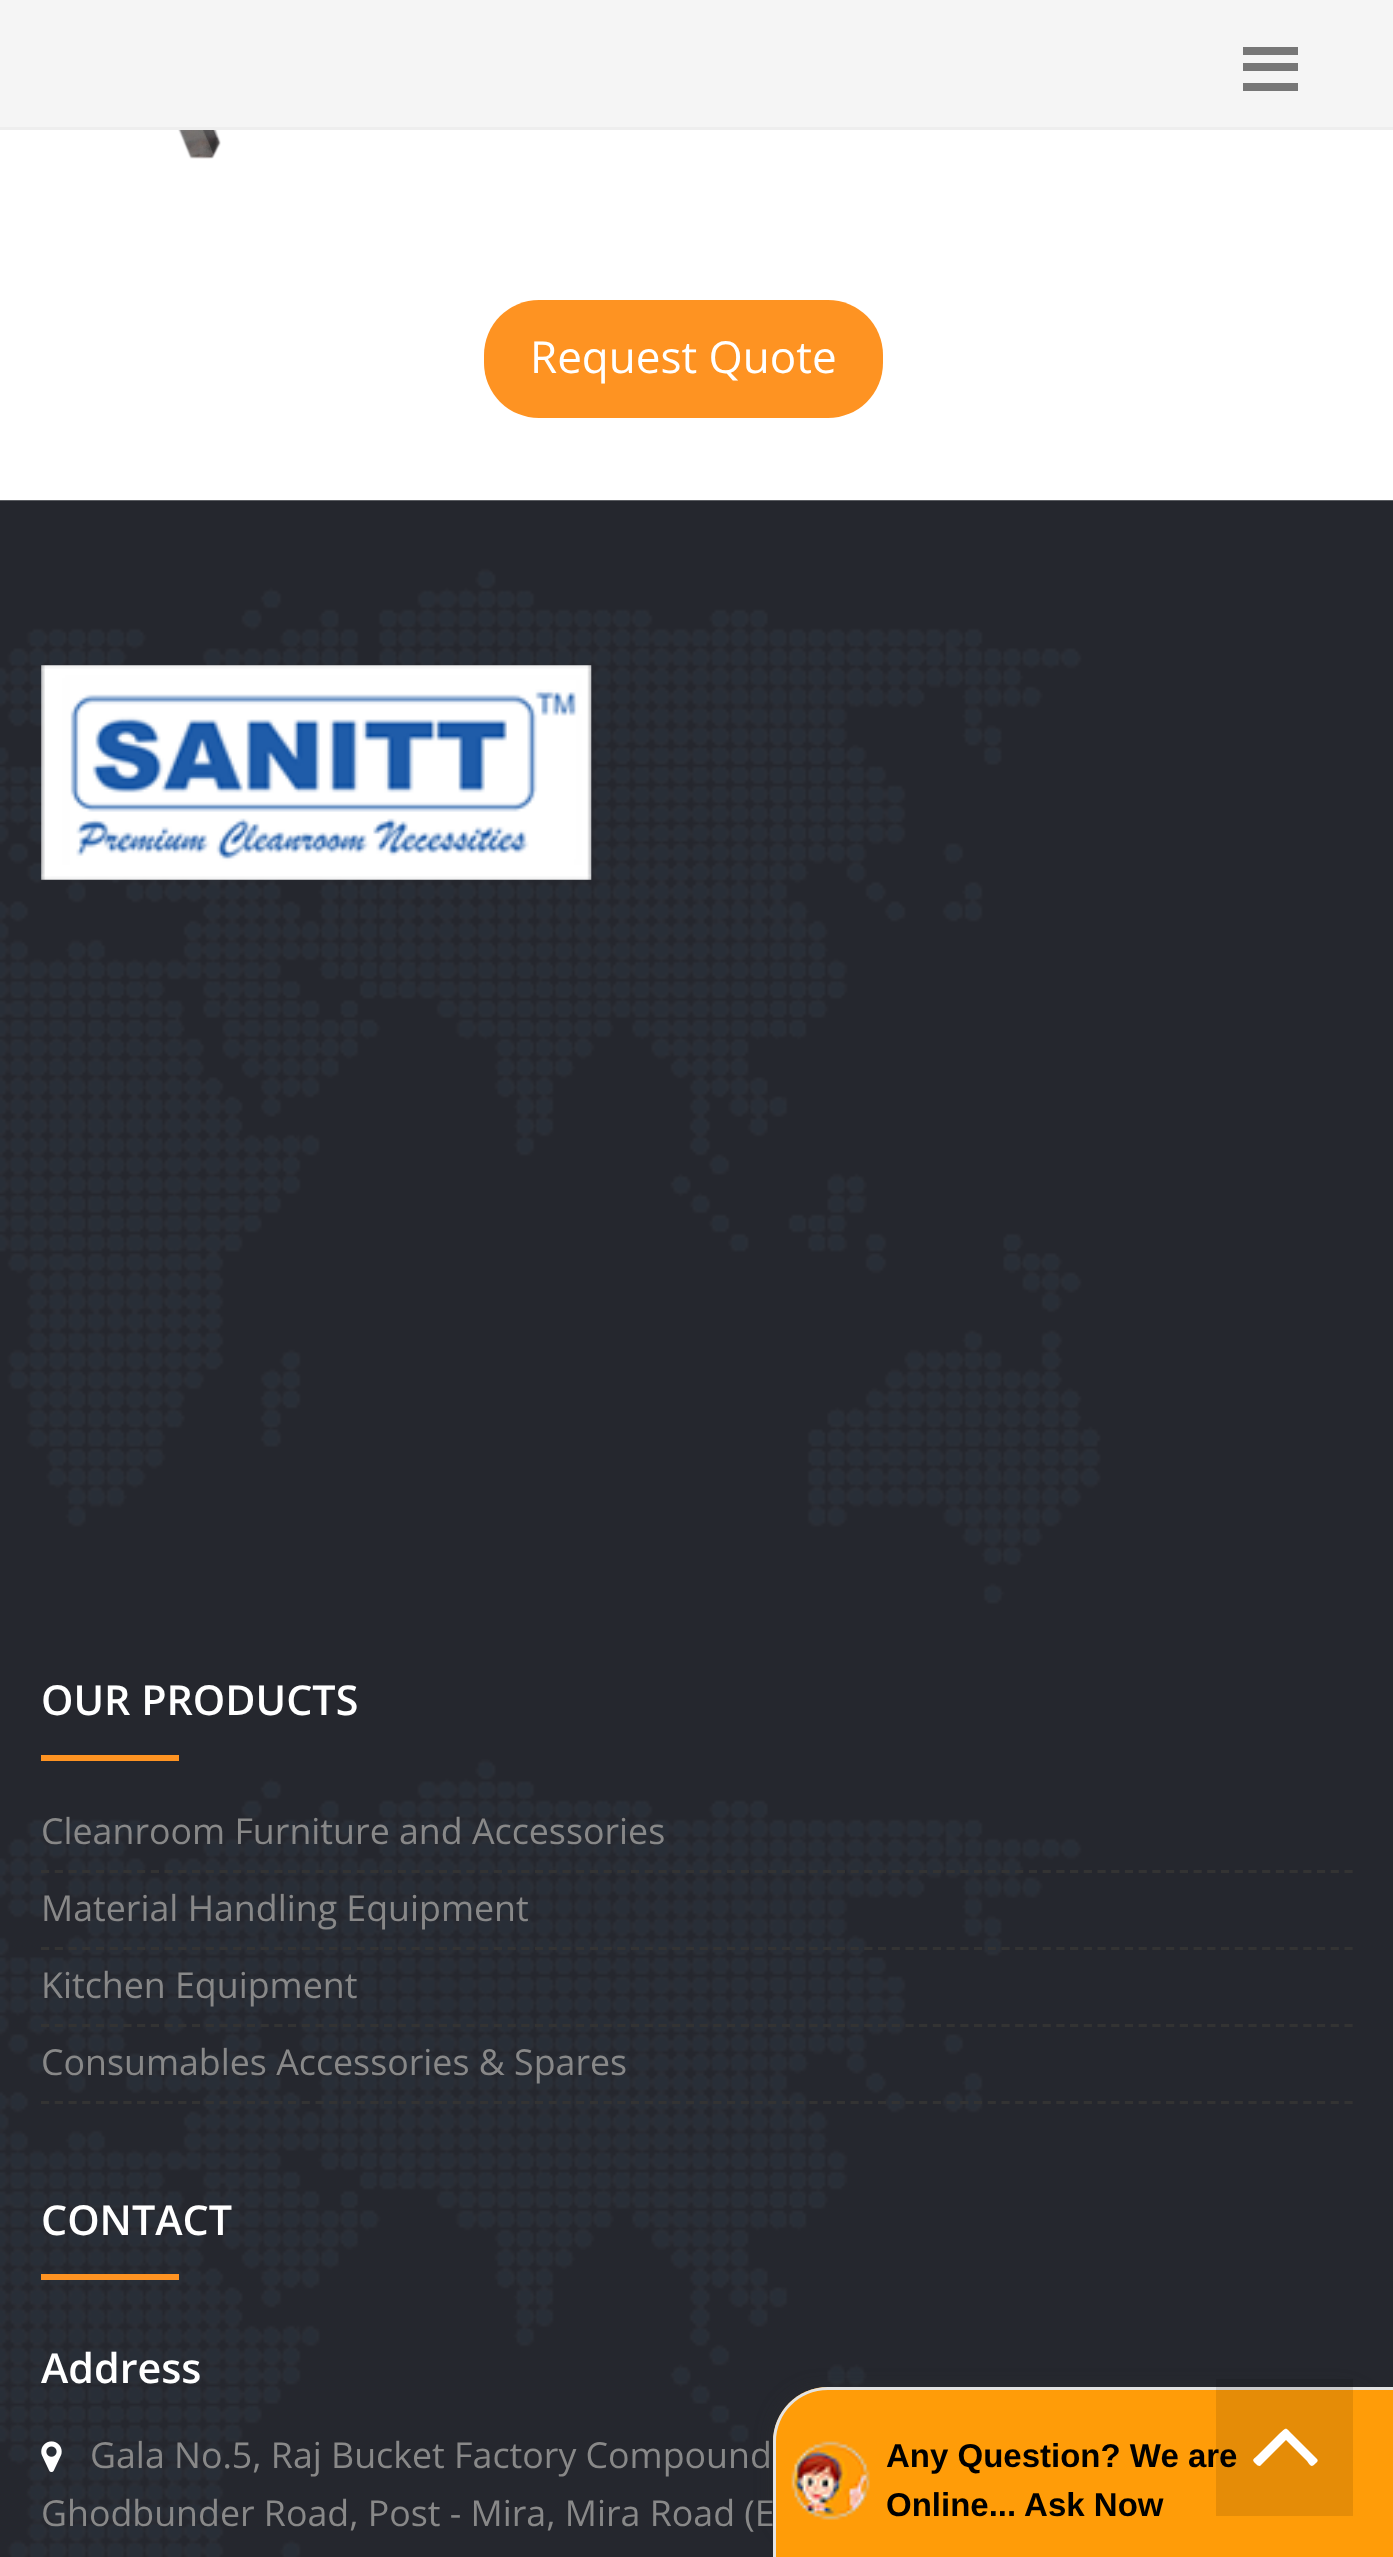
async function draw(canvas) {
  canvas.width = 1393
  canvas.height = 2557
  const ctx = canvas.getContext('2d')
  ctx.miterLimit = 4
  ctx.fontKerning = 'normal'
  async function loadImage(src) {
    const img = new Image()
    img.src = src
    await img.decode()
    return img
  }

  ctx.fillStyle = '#fff'
  ctx.fillRect(0, 0, 1393, 2557)
  ctx.fillStyle = '#f5f5f5'
  ctx.fillRect(0, 0, 1393, 127)
  ctx.fillStyle = '#eee'
  ctx.fillRect(0, 127, 1393, 3)
  ctx.fillStyle = '#777'
  ctx.fillRect(1243, 47, 55, 8)
  ctx.fillRect(1243, 63, 55, 8)
  ctx.fillRect(1243, 83, 55, 8)
  ctx.drawImage(await loadImage('image0.png'), 178, 130, 43, 29)
  ctx.fillStyle = '#fe9322'
  ctx.beginPath()
  ctx.roundRect(484, 300, 399, 118, 55)
  ctx.fill()
  ctx.font = '44px Open Sans'
  ctx.fillStyle = '#fff'
  ctx.fillText('Request Quote', 530, 373)
  ctx.drawImage(await loadImage('image1.png'), 0, 500, 1393, 2057)
  ctx.drawImage(await loadImage('image2.png'), 41, 665, 551, 215)
  ctx.font = '600 41.25px Open Sans'
  ctx.fillText('OUR PRODUCTS', 41, 1715)
  ctx.fillStyle = '#fe9322'
  ctx.fillRect(41, 1755, 138, 6)
  ctx.beginPath()
  ctx.moveTo(41, 1871.5)
  ctx.lineTo(1353, 1871.5)
  ctx.strokeStyle = '#333'
  ctx.lineWidth = 2.8
  ctx.setLineDash([8.25, 5.47])
  ctx.stroke()
  ctx.font = '35.75px Open Sans'
  ctx.fillStyle = '#888'
  ctx.fillText('Cleanroom Furniture and Accessories', 41, 1844)
  ctx.beginPath()
  ctx.moveTo(41, 1948.5)
  ctx.lineTo(1353, 1948.5)
  ctx.stroke()
  ctx.fillText('Material Handling Equipment', 41, 1921)
  ctx.beginPath()
  ctx.moveTo(41, 2025.5)
  ctx.lineTo(1353, 2025.5)
  ctx.stroke()
  ctx.fillText('Kitchen Equipment', 41, 1998)
  ctx.beginPath()
  ctx.moveTo(41, 2102.5)
  ctx.lineTo(1353, 2102.5)
  ctx.stroke()
  ctx.fillText('Consumables Accessories & Spares', 41, 2075)
  ctx.font = '600 41.25px Open Sans'
  ctx.fillStyle = '#fff'
  ctx.fillText('CONTACT', 41, 2235)
  ctx.fillStyle = '#fe9322'
  ctx.fillRect(41, 2274, 138, 6)
  ctx.fillStyle = '#fff'
  ctx.fillText('Address', 41, 2383)
  ctx.drawImage(await loadImage('image3.png'), 41, 2441, 21, 31)
  ctx.font = '35.75px Open Sans'
  ctx.fillStyle = '#888'
  ctx.fillText('Gala No.5, Raj Bucket Factory Compound', 90, 2468)
  ctx.fillText('Ghodbunder Road, Post - Mira, Mira Road (E', 41, 2526)
  ctx.fillStyle = '#3232322b'
  ctx.filter = 'blur(7px)'
  ctx.beginPath()
  ctx.roundRect(767, 2382, 622, 170, 55)
  ctx.fill()
  ctx.filter = 'none'
  ctx.fillStyle = '#ff9c08'
  ctx.beginPath()
  ctx.moveTo(828, 2387)
  ctx.lineTo(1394, 2387)
  ctx.lineTo(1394, 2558)
  ctx.lineTo(773, 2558)
  ctx.lineTo(773, 2442)
  ctx.bezierCurveTo(773, 2411.5, 797.5, 2387, 828, 2387)
  ctx.closePath()
  ctx.fill()
  ctx.fillStyle = '#e3e3e3'
  ctx.beginPath()
  ctx.moveTo(828, 2387)
  ctx.lineTo(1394, 2387)
  ctx.lineTo(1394, 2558)
  ctx.lineTo(773, 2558)
  ctx.lineTo(773, 2442)
  ctx.bezierCurveTo(773, 2412, 797, 2387, 828, 2387)
  ctx.closePath()
  ctx.moveTo(828, 2390)
  ctx.lineTo(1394, 2390)
  ctx.lineTo(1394, 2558)
  ctx.lineTo(776, 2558)
  ctx.lineTo(776, 2442)
  ctx.bezierCurveTo(776, 2413, 799, 2390, 828, 2390)
  ctx.closePath()
  ctx.fill('evenodd')
  ctx.fillStyle = '#0000001a'
  ctx.fillRect(1216, 2379, 137, 137)
  ctx.fillStyle = '#fff'
  ctx.beginPath()
  ctx.moveTo(1317, 2459)
  ctx.bezierCurveTo(1319, 2461, 1316, 2463, 1315, 2464)
  ctx.bezierCurveTo(1311, 2468, 1310, 2465, 1307, 2461)
  ctx.lineTo(1286, 2440)
  ctx.lineTo(1260, 2466)
  ctx.bezierCurveTo(1258, 2466, 1257, 2465, 1256, 2464)
  ctx.bezierCurveTo(1251, 2459, 1253, 2460, 1259, 2454)
  ctx.lineTo(1279, 2434)
  ctx.bezierCurveTo(1287, 2427, 1285, 2427, 1292, 2434)
  ctx.closePath()
  ctx.fill()
  ctx.drawImage(await loadImage('image4.png'), 791, 2441, 79, 79)
  ctx.font = 'bold 33px Liberation Sans'
  ctx.fillStyle = '#000'
  ctx.fillText('Any Question? We are', 886, 2467)
  ctx.fillText('Online... Ask Now', 886, 2516)
}

draw(document.querySelector('canvas'))
